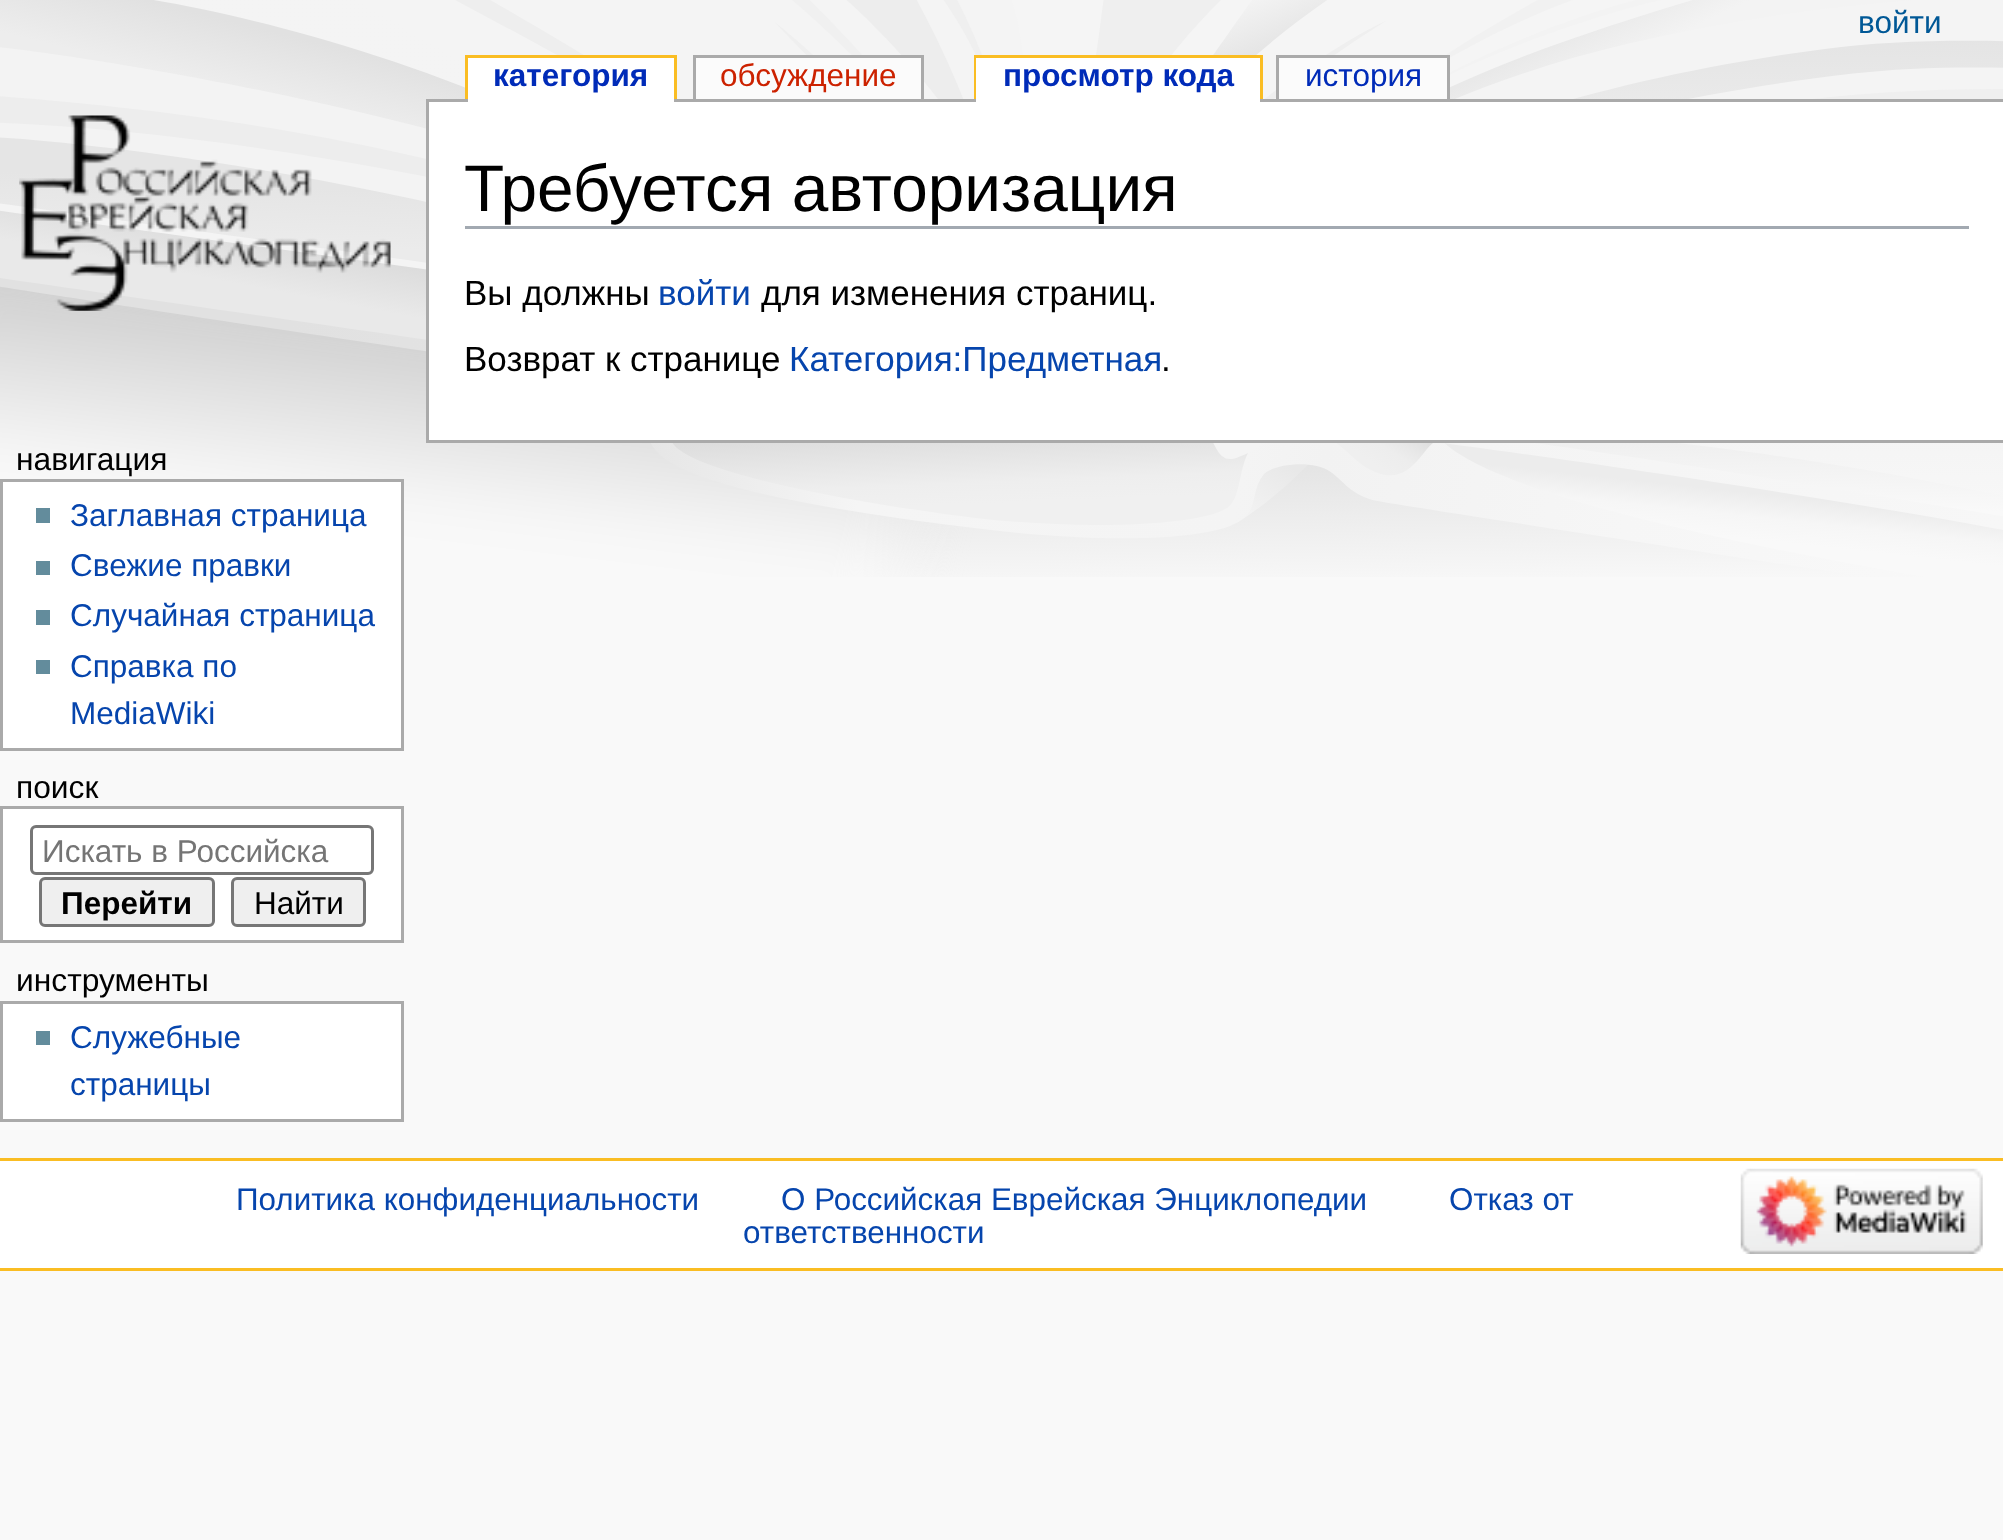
async function draw(canvas) {
  canvas.width = 2003
  canvas.height = 1540
  const ctx = canvas.getContext('2d')
  ctx.miterLimit = 4
  ctx.fontKerning = 'normal'
  async function loadImage(src) {
    const img = new Image()
    img.src = src
    await img.decode()
    return img
  }

  ctx.fillStyle = '#f9f9f9'
  ctx.fillRect(0, 0, 2003, 1540)
  ctx.drawImage(await loadImage('image0.png'), 0, 0, 2003, 577)
  ctx.font = '31.5px Liberation Sans'
  ctx.fillStyle = '#005896'
  ctx.fillText('войти', 1858, 33)
  ctx.fillStyle = '#aaa'
  ctx.fillRect(426, 99, 1577, 3)
  ctx.fillStyle = '#fff'
  ctx.fillRect(468, 58, 206, 44)
  ctx.font = 'bold 31.5px Liberation Sans'
  ctx.fillStyle = '#002bb8'
  ctx.fillText('категория', 493, 86)
  ctx.fillStyle = '#fabd23'
  ctx.fillRect(465, 55, 212, 3)
  ctx.fillRect(674, 55, 3, 44)
  ctx.fillRect(465, 55, 3, 44)
  ctx.fillStyle = '#fbfbfb'
  ctx.fillRect(696, 58, 225, 41)
  ctx.font = '31.5px Liberation Sans'
  ctx.fillStyle = '#c20'
  ctx.fillText('обсуждение', 720, 86)
  ctx.fillStyle = '#aaa'
  ctx.fillRect(693, 55, 231, 3)
  ctx.fillRect(921, 55, 3, 44)
  ctx.fillRect(693, 55, 3, 44)
  ctx.fillStyle = '#fabd23'
  ctx.fillRect(974, 55, 288, 3)
  ctx.fillRect(974, 55, 3, 44)
  ctx.fillStyle = '#fff'
  ctx.fillRect(976, 58, 284, 44)
  ctx.font = 'bold 31.5px Liberation Sans'
  ctx.fillStyle = '#002bb8'
  ctx.fillText('просмотр кода', 1003, 86)
  ctx.fillStyle = '#fabd23'
  ctx.fillRect(1260, 55, 3, 44)
  ctx.fillStyle = '#fbfbfb'
  ctx.fillRect(1279, 58, 168, 41)
  ctx.font = '31.5px Liberation Sans'
  ctx.fillStyle = '#002bb8'
  ctx.fillText('история', 1305, 86)
  ctx.fillStyle = '#aaa'
  ctx.fillRect(1276, 55, 173, 3)
  ctx.fillRect(1447, 55, 3, 44)
  ctx.fillRect(1276, 55, 3, 44)
  ctx.drawImage(await loadImage('image1.png'), 19, 115, 372, 196)
  ctx.font = '31.75px Liberation Sans'
  ctx.fillStyle = '#000'
  ctx.fillText('навигация', 16, 470)
  ctx.fillStyle = '#fff'
  ctx.beginPath()
  ctx.rect(1.5, 480.5, 401, 269)
  ctx.fill()
  ctx.strokeStyle = '#aaa'
  ctx.lineWidth = 3
  ctx.stroke()
  ctx.fillStyle = '#638c9c'
  ctx.fillRect(36, 508, 14, 15)
  ctx.font = '31.5px Liberation Sans'
  ctx.fillStyle = '#0645ad'
  ctx.fillText('Заглавная страница', 70, 526)
  ctx.fillStyle = '#638c9c'
  ctx.fillRect(36, 561, 14, 14)
  ctx.fillStyle = '#0645ad'
  ctx.fillText('Свежие правки', 70, 576)
  ctx.fillStyle = '#638c9c'
  ctx.fillRect(36, 610, 14, 15)
  ctx.fillStyle = '#0645ad'
  ctx.fillText('Случайная страница', 70, 626)
  ctx.fillStyle = '#638c9c'
  ctx.fillRect(36, 660, 14, 14)
  ctx.fillStyle = '#0645ad'
  ctx.fillText('Справка по', 70, 677)
  ctx.fillText('MediaWiki', 70, 724)
  ctx.font = '31.75px Liberation Sans'
  ctx.fillStyle = '#000'
  ctx.fillText('поиск', 16, 798)
  ctx.fillStyle = '#fff'
  ctx.beginPath()
  ctx.rect(1.5, 807.5, 401, 134)
  ctx.fill()
  ctx.stroke()
  ctx.beginPath()
  ctx.roundRect(31.5, 826.5, 341, 47, 4.5)
  ctx.strokeStyle = '#767676'
  ctx.stroke()
  ctx.font = '31.5px Liberation Sans'
  ctx.fillStyle = '#757575'
  ctx.fillText('Искать в Российска', 42, 862)
  ctx.fillStyle = '#efefef'
  ctx.beginPath()
  ctx.roundRect(40.5, 878.5, 173, 47, 4.5)
  ctx.fill()
  ctx.stroke()
  ctx.font = 'bold 31.5px Liberation Sans'
  ctx.fillStyle = '#000'
  ctx.fillText('Перейти', 61, 914)
  ctx.fillStyle = '#efefef'
  ctx.beginPath()
  ctx.roundRect(232.5, 878.5, 132, 47, 4.5)
  ctx.fill()
  ctx.stroke()
  ctx.font = '31.5px Liberation Sans'
  ctx.fillStyle = '#000'
  ctx.fillText('Найти', 254, 914)
  ctx.font = '31.75px Liberation Sans'
  ctx.fillText('инструменты', 16, 991)
  ctx.fillStyle = '#fff'
  ctx.beginPath()
  ctx.rect(1.5, 1002.5, 401, 118)
  ctx.fill()
  ctx.strokeStyle = '#aaa'
  ctx.stroke()
  ctx.fillStyle = '#638c9c'
  ctx.fillRect(36, 1031, 14, 14)
  ctx.font = '31.5px Liberation Sans'
  ctx.fillStyle = '#0645ad'
  ctx.fillText('Служебные', 70, 1048)
  ctx.fillText('страницы', 70, 1095)
  ctx.fillStyle = '#fff'
  ctx.fillRect(429, 102, 1574, 338)
  ctx.fillStyle = '#aaa'
  ctx.fillRect(426, 440, 1577, 3)
  ctx.fillRect(426, 99, 3, 344)
  ctx.fillStyle = '#a2a9b1'
  ctx.fillRect(465, 226, 1504, 3)
  ctx.font = '65.75px Liberation Sans'
  ctx.fillStyle = '#000'
  ctx.fillText('Требуется авторизация', 464, 211)
  ctx.font = '35px Liberation Sans'
  ctx.fillText('Вы должны', 464, 305)
  ctx.fillStyle = '#0645ad'
  ctx.fillText('войти', 658, 305)
  ctx.fillStyle = '#000'
  ctx.fillText('для изменения страниц.', 761, 305)
  ctx.fillText('Возврат к странице', 464, 371)
  ctx.fillStyle = '#0645ad'
  ctx.fillText('Категория:Предметная', 789, 371)
  ctx.fillStyle = '#000'
  ctx.fillText('.', 1161, 371)
  ctx.fillStyle = '#fff'
  ctx.fillRect(0, 1161, 2003, 107)
  ctx.fillStyle = '#fabd23'
  ctx.fillRect(0, 1158, 2003, 3)
  ctx.fillRect(0, 1268, 2003, 3)
  ctx.font = '31.4px Liberation Sans'
  ctx.fillStyle = '#0645ad'
  ctx.fillText('Политика конфиденциальности', 236, 1210)
  ctx.fillText('О Российская Еврейская Энциклопедии', 781, 1210)
  ctx.fillText('Отказ от', 1449, 1210)
  ctx.fillText('ответственности', 743, 1243)
  ctx.drawImage(await loadImage('image2.png'), 1740, 1168, 243, 86)
}

draw(document.querySelector('canvas'))
